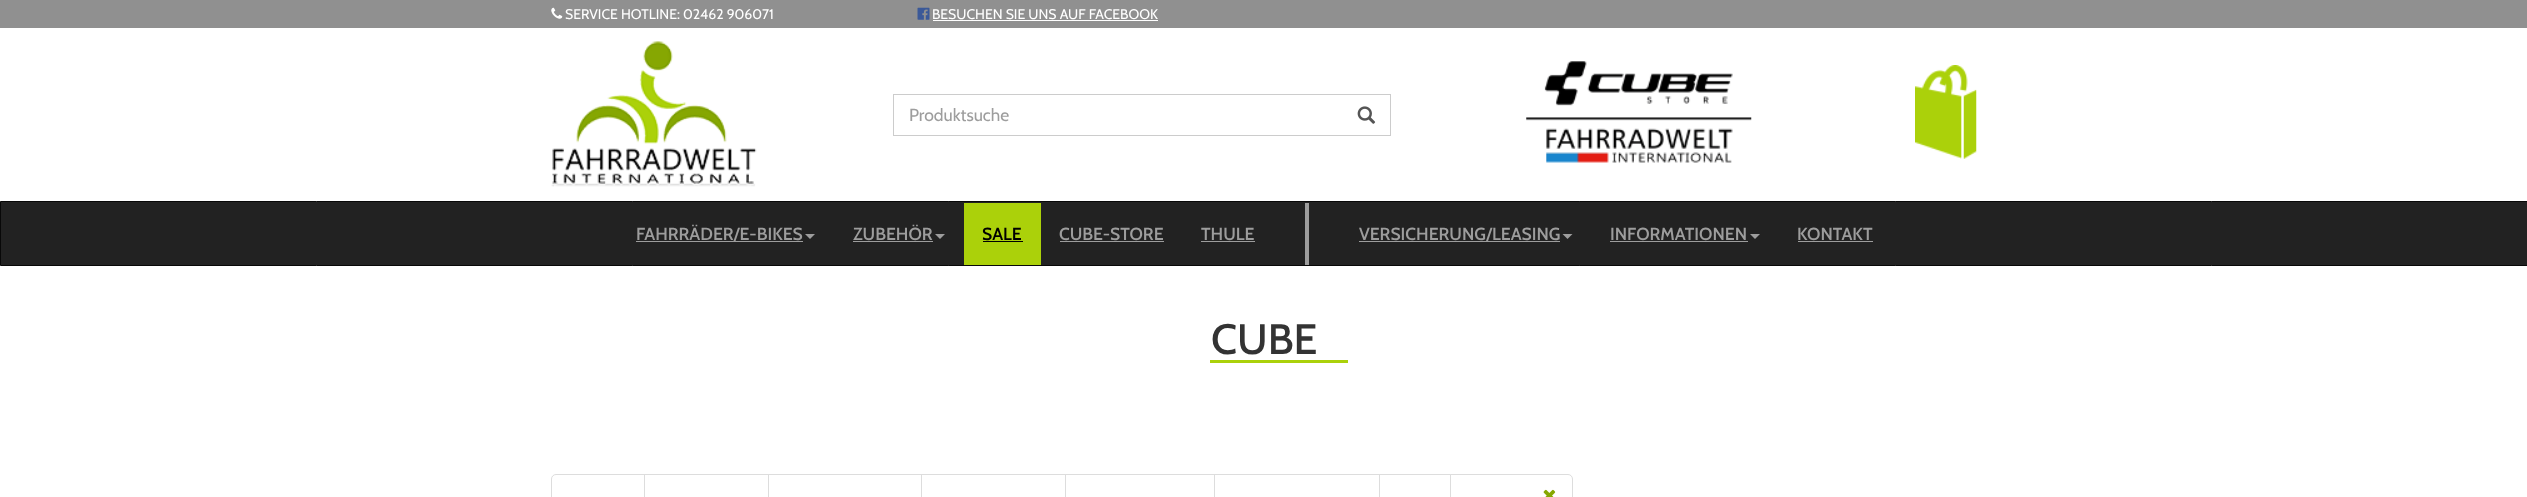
async function draw(canvas) {
  canvas.width = 2527
  canvas.height = 497
  const ctx = canvas.getContext('2d')
  ctx.miterLimit = 4
  ctx.fontKerning = 'normal'
  async function loadImage(src) {
    const img = new Image()
    img.src = src
    await img.decode()
    return img
  }

  ctx.fillStyle = '#fff'
  ctx.fillRect(0, 0, 2527, 497)
  ctx.fillStyle = '#909090'
  ctx.fillRect(0, 0, 2527, 28)
  ctx.drawImage(await loadImage('image0.png'), 551, 7, 12, 12)
  ctx.font = '14px Cabin'
  ctx.fillStyle = '#fff'
  ctx.fillText('SERVICE HOTLINE: 02462 906071', 565, 19)
  ctx.drawImage(await loadImage('image1.png'), 917, 7, 13, 13)
  ctx.fillText('BESUCHEN SIE UNS AUF FACEBOOK', 932, 19)
  ctx.fillRect(933, 20, 225, 1)
  ctx.drawImage(await loadImage('image2.png'), 551, 41, 206, 146)
  ctx.fillStyle = '#ccc'
  ctx.fillRect(893, 94, 498, 1)
  ctx.fillRect(1390, 94, 1, 42)
  ctx.fillRect(893, 135, 498, 1)
  ctx.drawImage(await loadImage('image3.png'), 1357, 106, 19, 18)
  ctx.fillRect(893, 94, 1, 42)
  ctx.font = '17.5px Cabin'
  ctx.fillStyle = '#9d9d9d'
  ctx.fillText('Produktsuche', 909, 121)
  ctx.drawImage(await loadImage('image4.png'), 1526, 61, 226, 102)
  ctx.drawImage(await loadImage('image5.png'), 1915, 65, 62, 94)
  ctx.fillStyle = '#222'
  ctx.beginPath()
  ctx.rect(0.5, 201.5, 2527, 64)
  ctx.fill()
  ctx.strokeStyle = '#080808'
  ctx.stroke()
  ctx.fillStyle = '#9d9d9d'
  ctx.fillRect(636, 241, 167, 1)
  ctx.font = '600 17.5px Cabin'
  ctx.fillText('FAHRRÄDER/E-BIKES', 636, 240)
  ctx.beginPath()
  ctx.moveTo(805, 234)
  ctx.lineTo(815, 234)
  ctx.lineTo(810, 239)
  ctx.closePath()
  ctx.fill()
  ctx.fillText('ZUBEHÖR', 853, 240)
  ctx.fillRect(853, 241, 80, 1)
  ctx.beginPath()
  ctx.moveTo(935, 234)
  ctx.lineTo(945, 234)
  ctx.lineTo(940, 239)
  ctx.closePath()
  ctx.fill()
  ctx.fillStyle = '#abd10a'
  ctx.fillRect(964, 203, 77, 62)
  ctx.fillStyle = '#000'
  ctx.fillText('SALE', 982, 240)
  ctx.fillRect(983, 241, 40, 1)
  ctx.fillStyle = '#9d9d9d'
  ctx.fillText('CUBE-STORE', 1059, 240)
  ctx.fillRect(1060, 241, 104, 1)
  ctx.fillText('THULE', 1201, 240)
  ctx.fillRect(1201, 241, 54, 1)
  ctx.fillRect(1305, 203, 4, 62)
  ctx.fillRect(1359, 241, 201, 1)
  ctx.fillText('VERSICHERUNG/LEASING', 1359, 240)
  ctx.beginPath()
  ctx.moveTo(1562.5, 234)
  ctx.lineTo(1572.5, 234)
  ctx.lineTo(1567.5, 239)
  ctx.closePath()
  ctx.fill()
  ctx.fillText('INFORMATIONEN', 1610, 240)
  ctx.fillRect(1610, 241, 138, 1)
  ctx.beginPath()
  ctx.moveTo(1750, 234)
  ctx.lineTo(1760, 234)
  ctx.lineTo(1755, 239)
  ctx.closePath()
  ctx.fill()
  ctx.fillText('KONTAKT', 1797, 240)
  ctx.fillRect(1798, 241, 75, 1)
  ctx.font = '500 42.5px Cabin'
  ctx.fillStyle = '#333'
  ctx.fillText('CUBE', 1211, 354)
  ctx.fillStyle = '#abd10a'
  ctx.fillRect(1210, 360, 138, 3)
  ctx.beginPath()
  ctx.moveTo(556, 474.5)
  ctx.lineTo(644.5, 474.5)
  ctx.lineTo(644.5, 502.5)
  ctx.lineTo(556, 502.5)
  ctx.bezierCurveTo(553.5, 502.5, 551.5, 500.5, 551.5, 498)
  ctx.lineTo(551.5, 479)
  ctx.bezierCurveTo(551.5, 476.5, 553.5, 474.5, 556, 474.5)
  ctx.closePath()
  ctx.strokeStyle = '#ddd'
  ctx.stroke()
  ctx.strokeRect(644.5, 474.5, 124, 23)
  ctx.strokeRect(768.5, 474.5, 154, 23)
  ctx.fillStyle = '#fff'
  ctx.fillRect(922, 475, 1, 22)
  ctx.strokeRect(921.5, 474.5, 144, 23)
  ctx.strokeRect(1065.5, 474.5, 149, 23)
  ctx.strokeRect(1214.5, 474.5, 165, 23)
  ctx.strokeRect(1379.5, 474.5, 71, 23)
  ctx.beginPath()
  ctx.moveTo(1450.5, 474.5)
  ctx.lineTo(1568, 474.5)
  ctx.bezierCurveTo(1570.5, 474.5, 1572.5, 476.5, 1572.5, 479)
  ctx.lineTo(1572.5, 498)
  ctx.bezierCurveTo(1572.5, 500.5, 1570.5, 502.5, 1568, 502.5)
  ctx.lineTo(1450.5, 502.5)
  ctx.closePath()
  ctx.fill()
  ctx.stroke()
  ctx.drawImage(await loadImage('image6.png'), 1543, 489, 13, 8)
}

draw(document.querySelector('canvas'))
